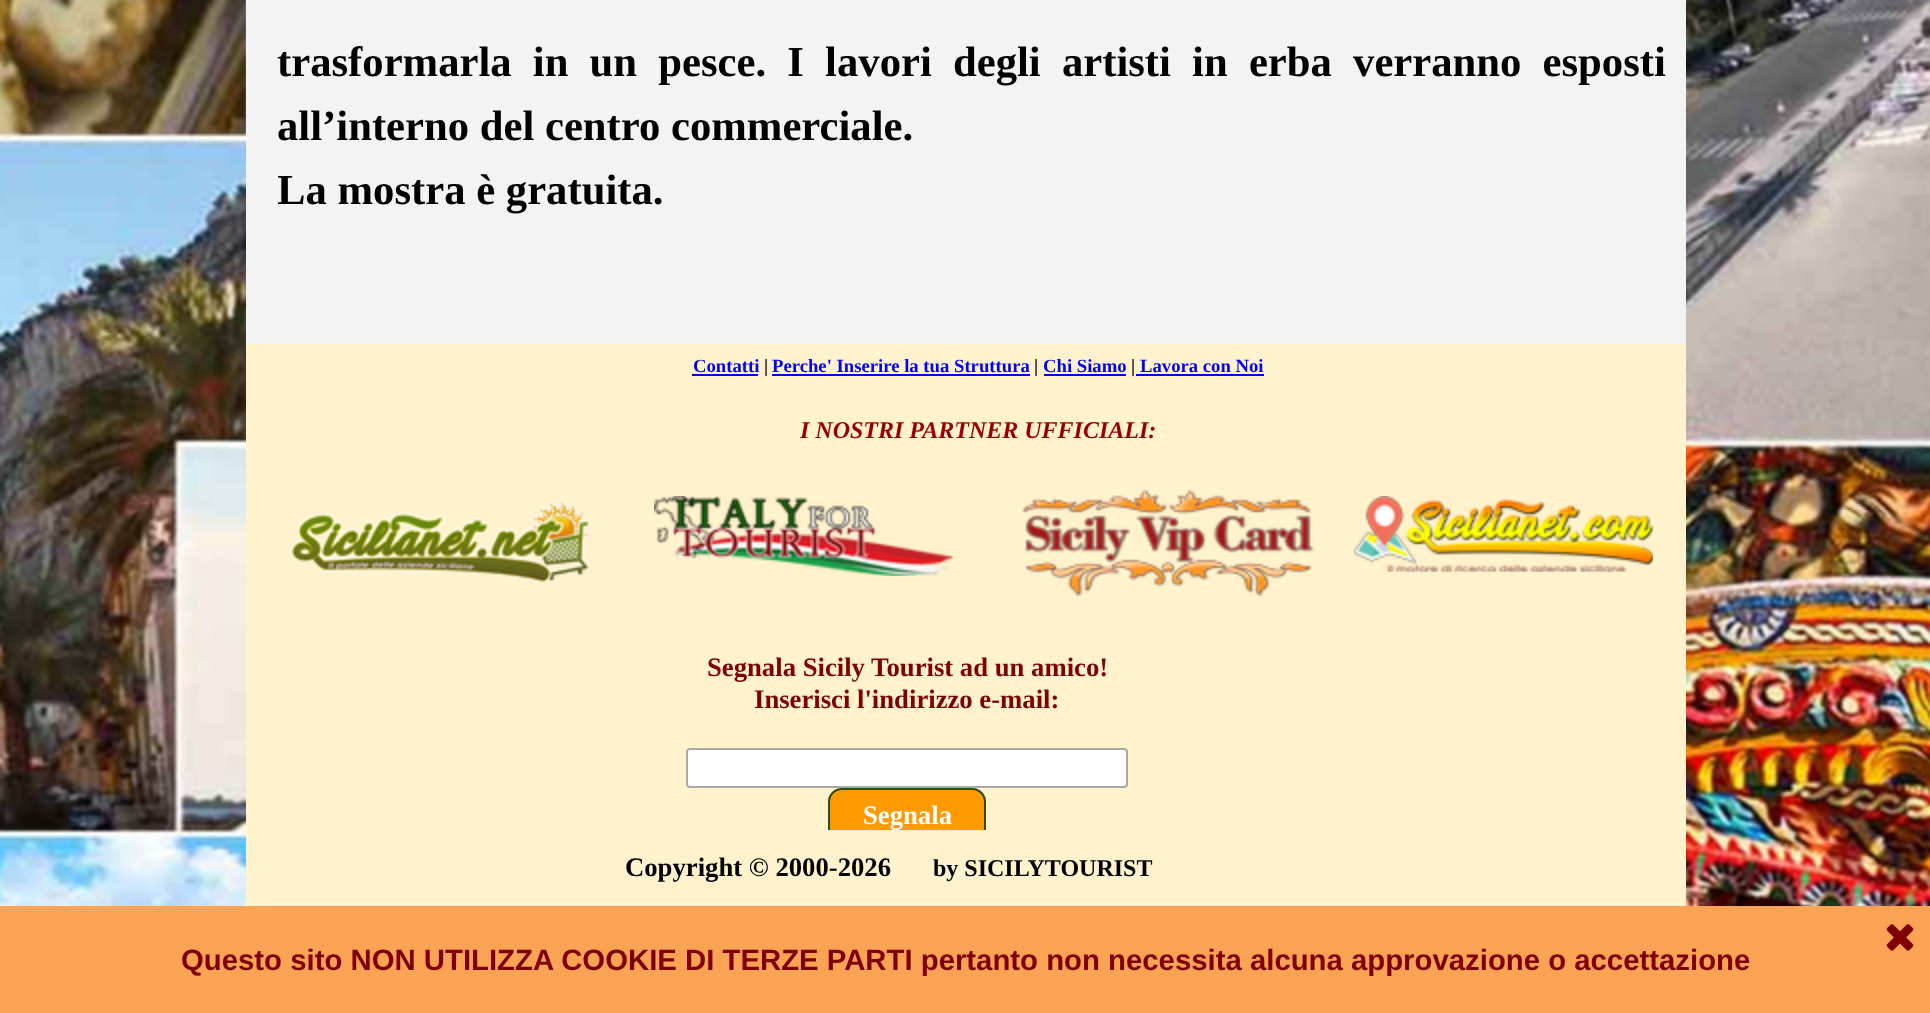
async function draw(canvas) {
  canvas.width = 1930
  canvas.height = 1013
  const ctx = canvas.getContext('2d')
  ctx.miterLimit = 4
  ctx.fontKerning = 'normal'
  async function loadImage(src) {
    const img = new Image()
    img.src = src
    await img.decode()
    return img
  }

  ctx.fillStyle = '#fff'
  ctx.fillRect(0, 0, 1930, 1013)
  ctx.drawImage(await loadImage('image0.png'), 0, 0, 1930, 906)
  ctx.fillStyle = '#f3f3f3'
  ctx.fillRect(246, 0, 1440, 344)
  ctx.wordSpacing = '10.5px'
  ctx.font = 'bold 42.7px Liberation Serif'
  ctx.fillStyle = '#000'
  ctx.fillText('trasformarla in un pesce. I lavori degli artisti in erba verranno esposti', 277, 76)
  ctx.wordSpacing = '0px'
  ctx.fillText('all’interno del centro commerciale.', 277, 140)
  ctx.save()
  ctx.beginPath()
  ctx.rect(278, 0, 1388, 318)
  ctx.clip()
  ctx.fillText('La mostra è gratuita.', 277, 204)
  ctx.restore()
  ctx.fillStyle = '#fff2cc'
  ctx.fillRect(246, 344, 1440, 562)
  ctx.font = 'bold 18.7px Liberation Serif'
  ctx.fillStyle = '#00f'
  ctx.fillText('Contatti', 693, 372)
  ctx.fillRect(692, 374, 66, 2)
  ctx.fillStyle = '#000'
  ctx.fillText('|', 764, 372)
  ctx.fillStyle = '#00f'
  ctx.fillText('Perche\' Inserire la tua Struttura', 772, 372)
  ctx.fillRect(772, 374, 258, 2)
  ctx.fillStyle = '#000'
  ctx.fillText('|', 1034, 372)
  ctx.fillStyle = '#00f'
  ctx.fillText('Chi Siamo', 1043, 372)
  ctx.fillRect(1044, 374, 82, 2)
  ctx.fillStyle = '#000'
  ctx.fillText('|', 1131, 372)
  ctx.fillStyle = '#00f'
  ctx.fillRect(1136, 374, 128, 2)
  ctx.fillText('Lavora con Noi', 1140, 372)
  ctx.font = 'italic bold 24px Liberation Serif'
  ctx.fillStyle = '#980000'
  ctx.fillText('I NOSTRI PARTNER UFFICIALI:', 800, 438)
  ctx.drawImage(await loadImage('image1.png'), 290, 498, 299, 84)
  ctx.drawImage(await loadImage('image2.png'), 654, 496, 299, 80)
  ctx.drawImage(await loadImage('image3.png'), 1022, 489, 292, 107)
  ctx.drawImage(await loadImage('image4.png'), 1354, 496, 299, 76)
  ctx.font = 'bold 26.7px Liberation Serif'
  ctx.fillStyle = '#800000'
  ctx.fillText('Segnala Sicily Tourist ad un amico!', 707, 676)
  ctx.fillText('Inserisci l\'indirizzo e-mail:', 754, 708)
  ctx.fillStyle = '#fff'
  ctx.beginPath()
  ctx.roundRect(687, 749, 440, 38, 3)
  ctx.fill()
  ctx.strokeStyle = '#a9a9a9'
  ctx.lineWidth = 2
  ctx.stroke()
  ctx.fillStyle = '#f90'
  ctx.beginPath()
  ctx.roundRect(828, 788, 158, 42, [14, 14, 0, 0])
  ctx.fill()
  ctx.save()
  ctx.beginPath()
  ctx.rect(686, 652, 444, 178)
  ctx.clip()
  ctx.beginPath()
  ctx.roundRect(829, 789, 156, 54, 13)
  ctx.strokeStyle = '#274e13'
  ctx.stroke()
  ctx.restore()
  ctx.fillStyle = '#fff'
  ctx.fillText('Segnala', 863, 824)
  ctx.fillStyle = '#000'
  ctx.fillText('Copyright © 2000-2026', 625, 876)
  ctx.font = 'bold 24px Liberation Serif'
  ctx.fillText('by SICILYTOURIST', 933, 876)
  ctx.fillStyle = '#faa354'
  ctx.fillRect(0, 906, 1930, 107)
  ctx.drawImage(await loadImage('image5.png'), 1886, 924, 28, 27)
  ctx.font = 'bold 29.33px Liberation Sans'
  ctx.fillStyle = '#800000'
  ctx.fillText('Questo sito NON UTILIZZA COOKIE DI TERZE PARTI pertanto non necessita alcuna approvazione o accettazione', 181, 970)
}

draw(document.querySelector('canvas'))
